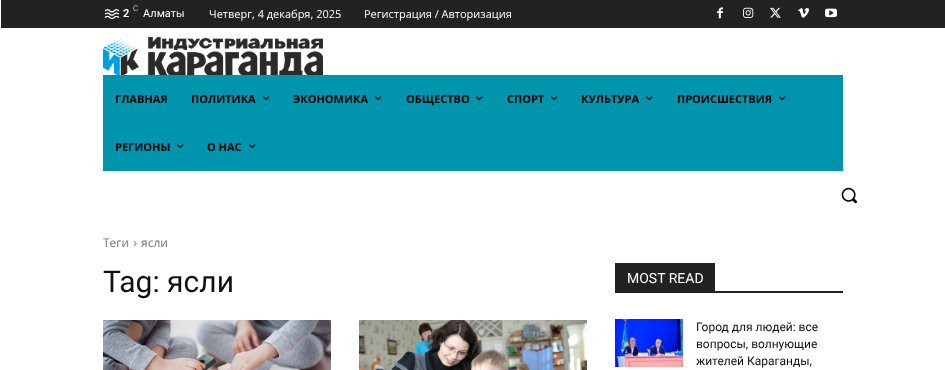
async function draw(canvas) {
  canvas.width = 945
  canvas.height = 370
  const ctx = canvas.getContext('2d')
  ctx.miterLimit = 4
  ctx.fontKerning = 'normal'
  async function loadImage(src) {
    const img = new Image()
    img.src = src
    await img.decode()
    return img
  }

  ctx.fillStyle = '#fff'
  ctx.fillRect(0, 0, 945, 370)
  ctx.fillStyle = '#222'
  ctx.fillRect(1, 0, 944, 28)
  ctx.drawImage(await loadImage('image0.png'), 104, 9, 16, 11)
  ctx.font = '600 11px Roboto'
  ctx.fillStyle = '#fff'
  ctx.fillText('2', 123, 17)
  ctx.font = '300 8px Roboto'
  ctx.fillText('C', 133, 11)
  ctx.font = '11px Roboto'
  ctx.fillText('Алматы', 143, 17)
  ctx.font = '11px Open Sans'
  ctx.fillText('Четверг, 4 декабря, 2025', 209, 18)
  ctx.fillText('Регистрация / Авторизация', 364, 18)
  ctx.drawImage(await loadImage('image1.png'), 717, 7, 6, 12)
  ctx.drawImage(await loadImage('image2.png'), 743, 7, 11, 11)
  ctx.drawImage(await loadImage('image3.png'), 770, 7, 11, 11)
  ctx.drawImage(await loadImage('image4.png'), 798, 8, 11, 10)
  ctx.drawImage(await loadImage('image5.png'), 825, 8, 12, 10)
  ctx.drawImage(await loadImage('image6.png'), 103, 37, 220, 38)
  ctx.fillStyle = '#0095ac'
  ctx.fillRect(103, 75, 740, 96)
  ctx.font = 'bold 11px Open Sans'
  ctx.fillStyle = '#000'
  ctx.fillText('ГЛАВНАЯ', 115, 103)
  ctx.fillText('ПОЛИТИКА', 191, 103)
  ctx.drawImage(await loadImage('image7.png'), 263, 96, 7, 5)
  ctx.fillText('ЭКОНОМИКА', 293, 103)
  ctx.drawImage(await loadImage('image7.png'), 375, 96, 7, 5)
  ctx.fillText('ОБЩЕСТВО', 406, 103)
  ctx.drawImage(await loadImage('image7.png'), 476, 96, 7, 5)
  ctx.fillText('СПОРТ', 507, 103)
  ctx.drawImage(await loadImage('image7.png'), 551, 96, 7, 5)
  ctx.fillText('КУЛЬТУРА', 581, 103)
  ctx.drawImage(await loadImage('image7.png'), 646, 96, 7, 5)
  ctx.fillText('ПРОИСШЕСТВИЯ', 677, 103)
  ctx.drawImage(await loadImage('image7.png'), 779, 96, 7, 5)
  ctx.fillText('РЕГИОНЫ', 115, 151)
  ctx.drawImage(await loadImage('image7.png'), 177, 144, 7, 5)
  ctx.fillText('О НАС', 207, 151)
  ctx.drawImage(await loadImage('image7.png'), 249, 144, 7, 5)
  ctx.drawImage(await loadImage('image8.png'), 841, 187, 16, 17)
  ctx.font = '12px Open Sans'
  ctx.fillStyle = '#747474'
  ctx.fillText('Теги', 103, 247)
  ctx.drawImage(await loadImage('image9.png'), 134, 241, 3, 5)
  ctx.fillText('ясли', 141, 247)
  ctx.font = '30px Roboto'
  ctx.fillStyle = '#111'
  ctx.fillText('Tag: ясли', 103, 292)
  ctx.drawImage(await loadImage('image10.png'), 103, 320, 228, 50)
  ctx.drawImage(await loadImage('image11.png'), 359, 320, 228, 50)
  ctx.fillStyle = '#222'
  ctx.fillRect(615, 291, 228, 2)
  ctx.fillRect(615, 263, 100, 28)
  ctx.font = '14px Roboto'
  ctx.fillStyle = '#fff'
  ctx.fillText('MOST READ', 627, 283)
  ctx.drawImage(await loadImage('image12.png'), 615, 319, 68, 48)
  ctx.font = '12px Roboto'
  ctx.fillStyle = '#111'
  ctx.fillText('Город для людей: все', 696, 331)
  ctx.fillText('вопросы, волнующие', 696, 348)
  ctx.fillText('жителей Караганды,', 696, 365)
}

draw(document.querySelector('canvas'))
